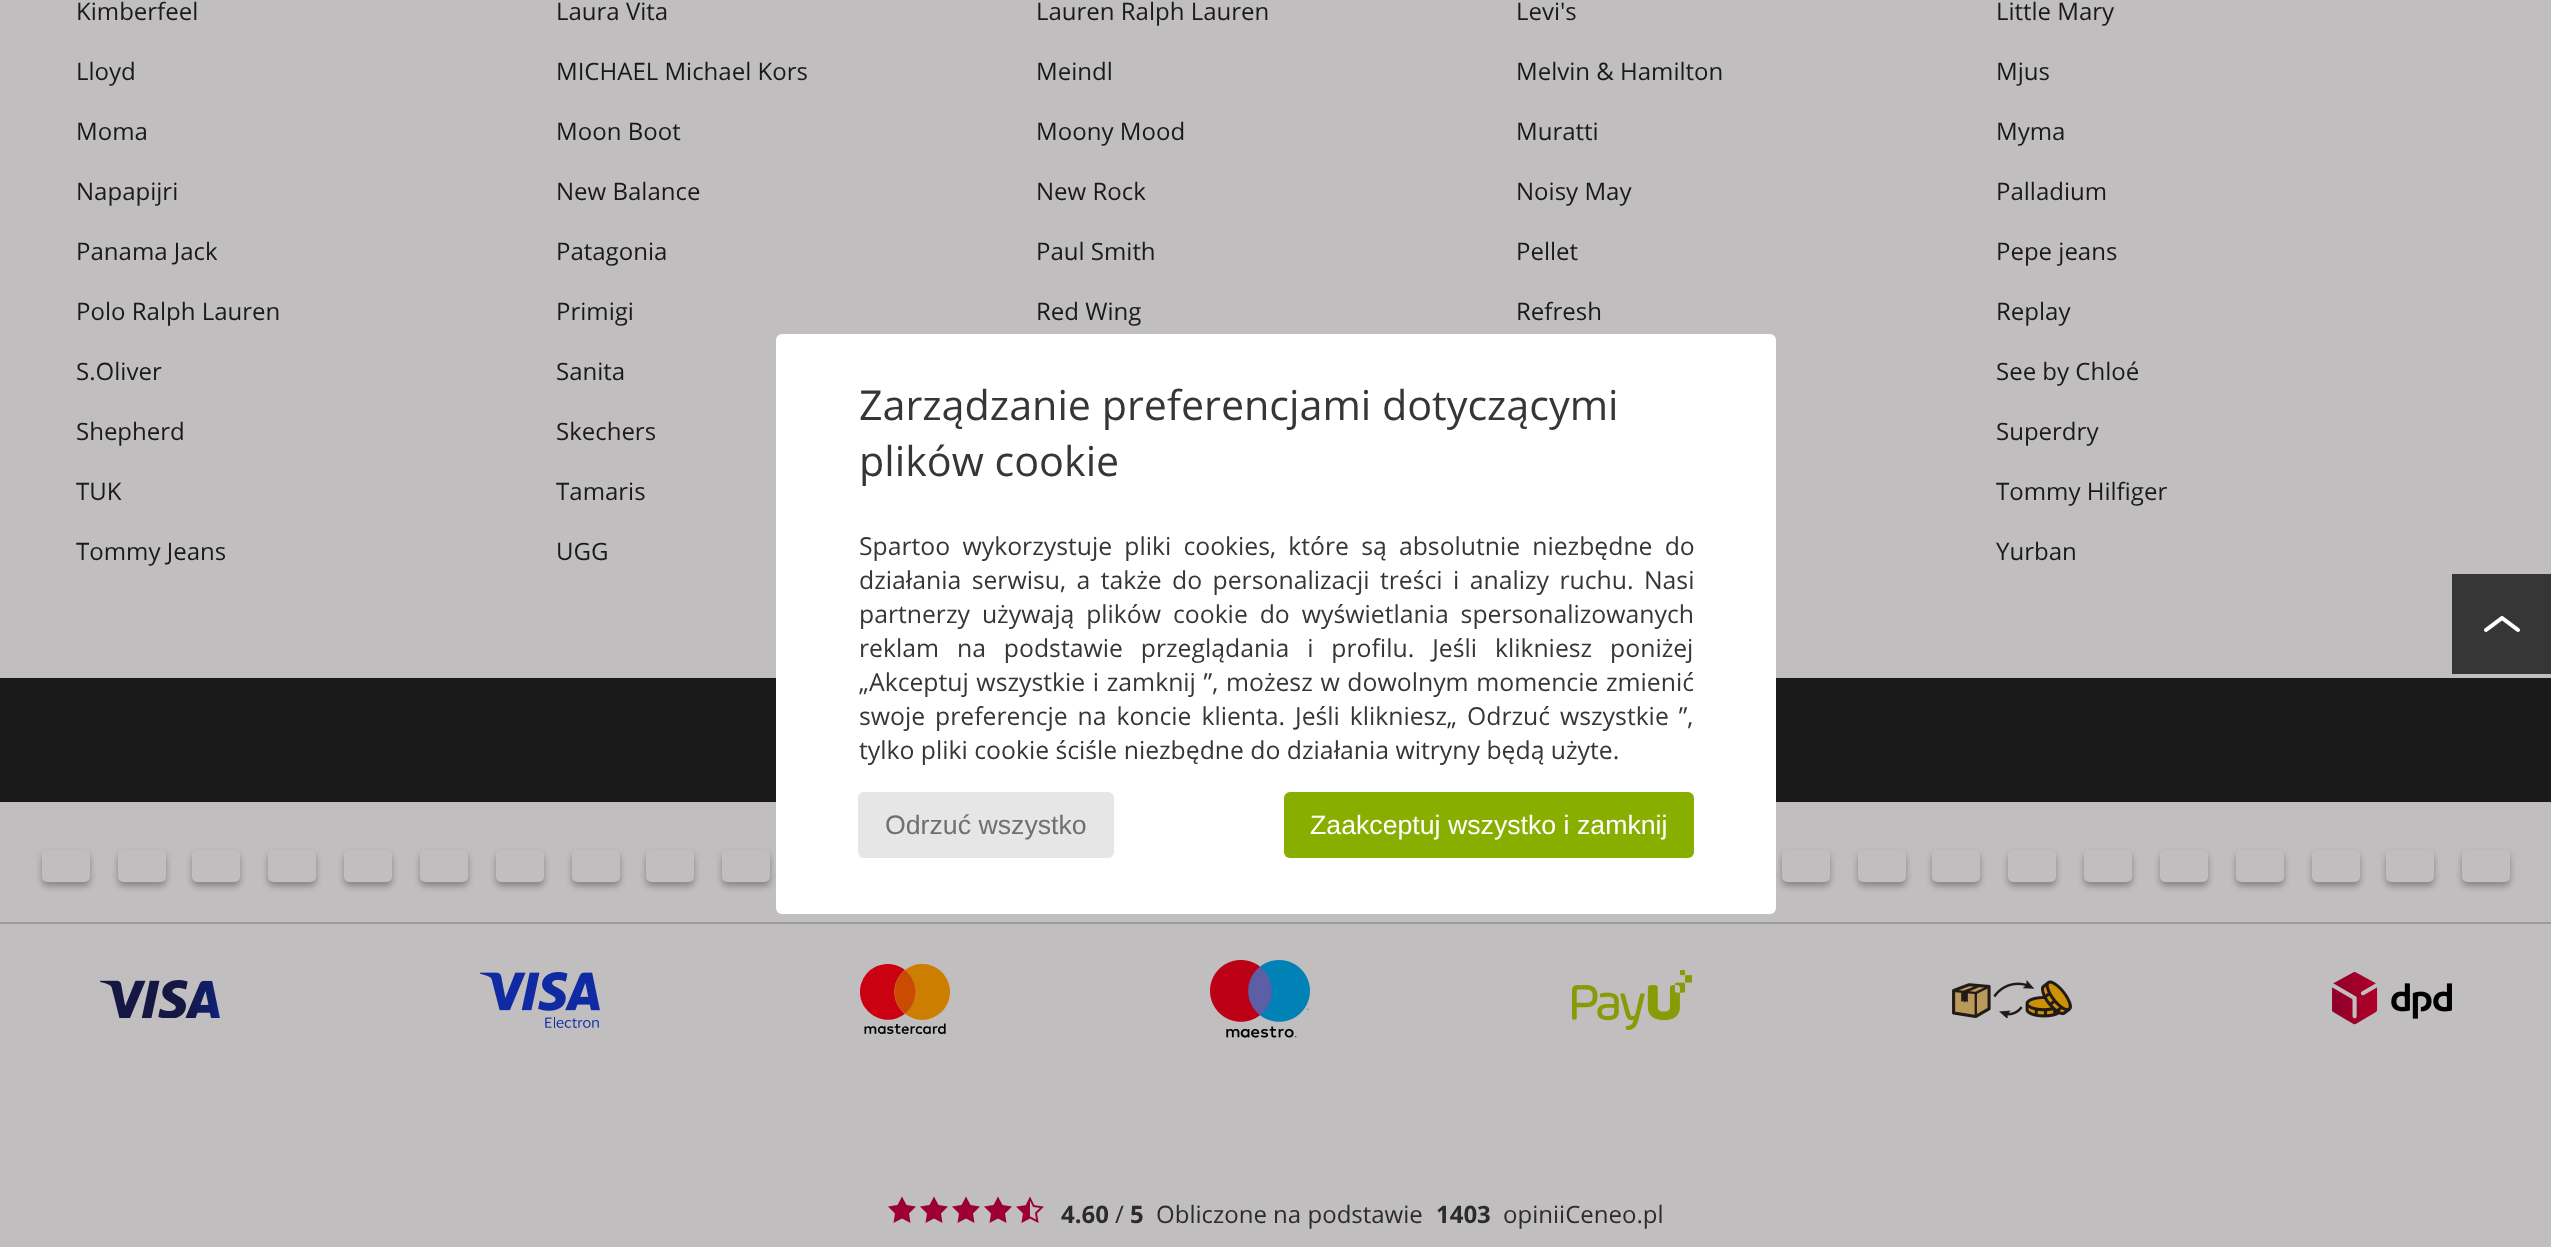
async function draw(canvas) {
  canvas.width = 2551
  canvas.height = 1247
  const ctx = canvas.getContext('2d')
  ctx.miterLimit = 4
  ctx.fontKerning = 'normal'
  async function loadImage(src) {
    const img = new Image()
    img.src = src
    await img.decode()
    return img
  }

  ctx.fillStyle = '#c0bebe'
  ctx.fillRect(0, 0, 2551, 1247)
  ctx.font = '24px Open Sans'
  ctx.fillStyle = '#1a1a1a'
  ctx.fillText('Kimberfeel', 76, 20)
  ctx.fillText('Laura Vita', 556, 20)
  ctx.fillText('Lauren Ralph Lauren', 1036, 20)
  ctx.fillText('Levi\'s', 1516, 20)
  ctx.fillText('Little Mary', 1996, 20)
  ctx.fillText('Lloyd', 76, 80)
  ctx.fillText('MICHAEL Michael Kors', 556, 80)
  ctx.fillText('Meindl', 1036, 80)
  ctx.fillText('Melvin & Hamilton', 1516, 80)
  ctx.fillText('Mjus', 1996, 80)
  ctx.fillText('Moma', 76, 140)
  ctx.fillText('Moon Boot', 556, 140)
  ctx.fillText('Moony Mood', 1036, 140)
  ctx.fillText('Muratti', 1516, 140)
  ctx.fillText('Myma', 1996, 140)
  ctx.fillText('Napapijri', 76, 200)
  ctx.fillText('New Balance', 556, 200)
  ctx.fillText('New Rock', 1036, 200)
  ctx.fillText('Noisy May', 1516, 200)
  ctx.fillText('Palladium', 1996, 200)
  ctx.fillText('Panama Jack', 76, 260)
  ctx.fillText('Patagonia', 556, 260)
  ctx.fillText('Paul Smith', 1036, 260)
  ctx.fillText('Pellet', 1516, 260)
  ctx.fillText('Pepe jeans', 1996, 260)
  ctx.fillText('Polo Ralph Lauren', 76, 320)
  ctx.fillText('Primigi', 556, 320)
  ctx.fillText('Red Wing', 1036, 320)
  ctx.fillText('Refresh', 1516, 320)
  ctx.fillText('Replay', 1996, 320)
  ctx.fillText('S.Oliver', 76, 380)
  ctx.fillText('Sanita', 556, 380)
  ctx.fillText('See by Chloé', 1996, 380)
  ctx.fillText('Shepherd', 76, 440)
  ctx.fillText('Skechers', 556, 440)
  ctx.fillText('Superdry', 1996, 440)
  ctx.fillText('TUK', 76, 500)
  ctx.fillText('Tamaris', 556, 500)
  ctx.fillText('Tommy Hilfiger', 1996, 500)
  ctx.fillText('Tommy Jeans', 76, 560)
  ctx.fillText('UGG', 556, 560)
  ctx.fillText('Yurban', 1996, 560)
  ctx.fillRect(0, 678, 2551, 124)
  ctx.fillStyle = '#9a9a9a'
  ctx.fillRect(0, 922, 2551, 2)
  ctx.save()
  ctx.beginPath()
  ctx.moveTo(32, 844)
  ctx.lineTo(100, 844)
  ctx.lineTo(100, 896)
  ctx.lineTo(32, 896)
  ctx.closePath()
  ctx.moveTo(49, 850)
  ctx.lineTo(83, 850)
  ctx.bezierCurveTo(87, 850, 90, 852, 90, 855)
  ctx.lineTo(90, 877)
  ctx.bezierCurveTo(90, 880, 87, 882, 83, 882)
  ctx.lineTo(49, 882)
  ctx.bezierCurveTo(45, 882, 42, 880, 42, 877)
  ctx.lineTo(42, 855)
  ctx.bezierCurveTo(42, 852, 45, 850, 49, 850)
  ctx.closePath()
  ctx.clip('evenodd')
  ctx.fillStyle = '#0000004d'
  ctx.filter = 'blur(3px)'
  ctx.beginPath()
  ctx.roundRect(42, 854, 48, 32, 5)
  ctx.fill()
  ctx.filter = 'none'
  ctx.restore()
  ctx.save()
  ctx.beginPath()
  ctx.moveTo(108, 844)
  ctx.lineTo(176, 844)
  ctx.lineTo(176, 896)
  ctx.lineTo(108, 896)
  ctx.closePath()
  ctx.moveTo(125, 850)
  ctx.lineTo(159, 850)
  ctx.bezierCurveTo(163, 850, 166, 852, 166, 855)
  ctx.lineTo(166, 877)
  ctx.bezierCurveTo(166, 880, 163, 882, 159, 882)
  ctx.lineTo(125, 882)
  ctx.bezierCurveTo(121, 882, 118, 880, 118, 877)
  ctx.lineTo(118, 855)
  ctx.bezierCurveTo(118, 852, 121, 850, 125, 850)
  ctx.closePath()
  ctx.clip('evenodd')
  ctx.fillStyle = '#0000004d'
  ctx.filter = 'blur(3px)'
  ctx.beginPath()
  ctx.roundRect(118, 854, 48, 32, 5)
  ctx.fill()
  ctx.filter = 'none'
  ctx.restore()
  ctx.save()
  ctx.beginPath()
  ctx.moveTo(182, 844)
  ctx.lineTo(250, 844)
  ctx.lineTo(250, 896)
  ctx.lineTo(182, 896)
  ctx.closePath()
  ctx.moveTo(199, 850)
  ctx.lineTo(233, 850)
  ctx.bezierCurveTo(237, 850, 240, 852, 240, 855)
  ctx.lineTo(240, 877)
  ctx.bezierCurveTo(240, 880, 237, 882, 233, 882)
  ctx.lineTo(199, 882)
  ctx.bezierCurveTo(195, 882, 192, 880, 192, 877)
  ctx.lineTo(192, 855)
  ctx.bezierCurveTo(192, 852, 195, 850, 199, 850)
  ctx.closePath()
  ctx.clip('evenodd')
  ctx.fillStyle = '#0000004d'
  ctx.filter = 'blur(3px)'
  ctx.beginPath()
  ctx.roundRect(192, 854, 48, 32, 5)
  ctx.fill()
  ctx.filter = 'none'
  ctx.restore()
  ctx.save()
  ctx.beginPath()
  ctx.moveTo(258, 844)
  ctx.lineTo(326, 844)
  ctx.lineTo(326, 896)
  ctx.lineTo(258, 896)
  ctx.closePath()
  ctx.moveTo(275, 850)
  ctx.lineTo(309, 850)
  ctx.bezierCurveTo(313, 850, 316, 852, 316, 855)
  ctx.lineTo(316, 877)
  ctx.bezierCurveTo(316, 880, 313, 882, 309, 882)
  ctx.lineTo(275, 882)
  ctx.bezierCurveTo(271, 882, 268, 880, 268, 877)
  ctx.lineTo(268, 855)
  ctx.bezierCurveTo(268, 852, 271, 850, 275, 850)
  ctx.closePath()
  ctx.clip('evenodd')
  ctx.fillStyle = '#0000004d'
  ctx.filter = 'blur(3px)'
  ctx.beginPath()
  ctx.roundRect(268, 854, 48, 32, 5)
  ctx.fill()
  ctx.filter = 'none'
  ctx.restore()
  ctx.save()
  ctx.beginPath()
  ctx.moveTo(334, 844)
  ctx.lineTo(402, 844)
  ctx.lineTo(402, 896)
  ctx.lineTo(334, 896)
  ctx.closePath()
  ctx.moveTo(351, 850)
  ctx.lineTo(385, 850)
  ctx.bezierCurveTo(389, 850, 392, 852, 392, 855)
  ctx.lineTo(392, 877)
  ctx.bezierCurveTo(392, 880, 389, 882, 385, 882)
  ctx.lineTo(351, 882)
  ctx.bezierCurveTo(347, 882, 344, 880, 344, 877)
  ctx.lineTo(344, 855)
  ctx.bezierCurveTo(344, 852, 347, 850, 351, 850)
  ctx.closePath()
  ctx.clip('evenodd')
  ctx.fillStyle = '#0000004d'
  ctx.filter = 'blur(3px)'
  ctx.beginPath()
  ctx.roundRect(344, 854, 48, 32, 5)
  ctx.fill()
  ctx.filter = 'none'
  ctx.restore()
  ctx.save()
  ctx.beginPath()
  ctx.moveTo(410, 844)
  ctx.lineTo(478, 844)
  ctx.lineTo(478, 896)
  ctx.lineTo(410, 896)
  ctx.closePath()
  ctx.moveTo(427, 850)
  ctx.lineTo(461, 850)
  ctx.bezierCurveTo(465, 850, 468, 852, 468, 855)
  ctx.lineTo(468, 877)
  ctx.bezierCurveTo(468, 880, 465, 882, 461, 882)
  ctx.lineTo(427, 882)
  ctx.bezierCurveTo(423, 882, 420, 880, 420, 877)
  ctx.lineTo(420, 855)
  ctx.bezierCurveTo(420, 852, 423, 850, 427, 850)
  ctx.closePath()
  ctx.clip('evenodd')
  ctx.fillStyle = '#0000004d'
  ctx.filter = 'blur(3px)'
  ctx.beginPath()
  ctx.roundRect(420, 854, 48, 32, 5)
  ctx.fill()
  ctx.filter = 'none'
  ctx.restore()
  ctx.save()
  ctx.beginPath()
  ctx.moveTo(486, 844)
  ctx.lineTo(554, 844)
  ctx.lineTo(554, 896)
  ctx.lineTo(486, 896)
  ctx.closePath()
  ctx.moveTo(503, 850)
  ctx.lineTo(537, 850)
  ctx.bezierCurveTo(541, 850, 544, 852, 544, 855)
  ctx.lineTo(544, 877)
  ctx.bezierCurveTo(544, 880, 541, 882, 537, 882)
  ctx.lineTo(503, 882)
  ctx.bezierCurveTo(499, 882, 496, 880, 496, 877)
  ctx.lineTo(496, 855)
  ctx.bezierCurveTo(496, 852, 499, 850, 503, 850)
  ctx.closePath()
  ctx.clip('evenodd')
  ctx.fillStyle = '#0000004d'
  ctx.filter = 'blur(3px)'
  ctx.beginPath()
  ctx.roundRect(496, 854, 48, 32, 5)
  ctx.fill()
  ctx.filter = 'none'
  ctx.restore()
  ctx.save()
  ctx.beginPath()
  ctx.moveTo(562, 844)
  ctx.lineTo(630, 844)
  ctx.lineTo(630, 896)
  ctx.lineTo(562, 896)
  ctx.closePath()
  ctx.moveTo(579, 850)
  ctx.lineTo(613, 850)
  ctx.bezierCurveTo(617, 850, 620, 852, 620, 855)
  ctx.lineTo(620, 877)
  ctx.bezierCurveTo(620, 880, 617, 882, 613, 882)
  ctx.lineTo(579, 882)
  ctx.bezierCurveTo(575, 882, 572, 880, 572, 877)
  ctx.lineTo(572, 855)
  ctx.bezierCurveTo(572, 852, 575, 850, 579, 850)
  ctx.closePath()
  ctx.clip('evenodd')
  ctx.fillStyle = '#0000004d'
  ctx.filter = 'blur(3px)'
  ctx.beginPath()
  ctx.roundRect(572, 854, 48, 32, 5)
  ctx.fill()
  ctx.filter = 'none'
  ctx.restore()
  ctx.save()
  ctx.beginPath()
  ctx.moveTo(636, 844)
  ctx.lineTo(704, 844)
  ctx.lineTo(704, 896)
  ctx.lineTo(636, 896)
  ctx.closePath()
  ctx.moveTo(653, 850)
  ctx.lineTo(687, 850)
  ctx.bezierCurveTo(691, 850, 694, 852, 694, 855)
  ctx.lineTo(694, 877)
  ctx.bezierCurveTo(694, 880, 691, 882, 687, 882)
  ctx.lineTo(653, 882)
  ctx.bezierCurveTo(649, 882, 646, 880, 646, 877)
  ctx.lineTo(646, 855)
  ctx.bezierCurveTo(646, 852, 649, 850, 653, 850)
  ctx.closePath()
  ctx.clip('evenodd')
  ctx.fillStyle = '#0000004d'
  ctx.filter = 'blur(3px)'
  ctx.beginPath()
  ctx.roundRect(646, 854, 48, 32, 5)
  ctx.fill()
  ctx.filter = 'none'
  ctx.restore()
  ctx.save()
  ctx.beginPath()
  ctx.moveTo(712, 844)
  ctx.lineTo(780, 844)
  ctx.lineTo(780, 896)
  ctx.lineTo(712, 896)
  ctx.closePath()
  ctx.moveTo(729, 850)
  ctx.lineTo(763, 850)
  ctx.bezierCurveTo(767, 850, 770, 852, 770, 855)
  ctx.lineTo(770, 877)
  ctx.bezierCurveTo(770, 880, 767, 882, 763, 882)
  ctx.lineTo(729, 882)
  ctx.bezierCurveTo(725, 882, 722, 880, 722, 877)
  ctx.lineTo(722, 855)
  ctx.bezierCurveTo(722, 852, 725, 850, 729, 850)
  ctx.closePath()
  ctx.clip('evenodd')
  ctx.fillStyle = '#0000004d'
  ctx.filter = 'blur(3px)'
  ctx.beginPath()
  ctx.roundRect(722, 854, 48, 32, 5)
  ctx.fill()
  ctx.filter = 'none'
  ctx.restore()
  ctx.save()
  ctx.beginPath()
  ctx.moveTo(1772, 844)
  ctx.lineTo(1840, 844)
  ctx.lineTo(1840, 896)
  ctx.lineTo(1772, 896)
  ctx.closePath()
  ctx.moveTo(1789, 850)
  ctx.lineTo(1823, 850)
  ctx.bezierCurveTo(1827, 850, 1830, 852, 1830, 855)
  ctx.lineTo(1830, 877)
  ctx.bezierCurveTo(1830, 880, 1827, 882, 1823, 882)
  ctx.lineTo(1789, 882)
  ctx.bezierCurveTo(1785, 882, 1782, 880, 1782, 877)
  ctx.lineTo(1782, 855)
  ctx.bezierCurveTo(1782, 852, 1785, 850, 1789, 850)
  ctx.closePath()
  ctx.clip('evenodd')
  ctx.fillStyle = '#0000004d'
  ctx.filter = 'blur(3px)'
  ctx.beginPath()
  ctx.roundRect(1782, 854, 48, 32, 5)
  ctx.fill()
  ctx.filter = 'none'
  ctx.restore()
  ctx.save()
  ctx.beginPath()
  ctx.moveTo(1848, 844)
  ctx.lineTo(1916, 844)
  ctx.lineTo(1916, 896)
  ctx.lineTo(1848, 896)
  ctx.closePath()
  ctx.moveTo(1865, 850)
  ctx.lineTo(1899, 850)
  ctx.bezierCurveTo(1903, 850, 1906, 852, 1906, 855)
  ctx.lineTo(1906, 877)
  ctx.bezierCurveTo(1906, 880, 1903, 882, 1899, 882)
  ctx.lineTo(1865, 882)
  ctx.bezierCurveTo(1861, 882, 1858, 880, 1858, 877)
  ctx.lineTo(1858, 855)
  ctx.bezierCurveTo(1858, 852, 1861, 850, 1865, 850)
  ctx.closePath()
  ctx.clip('evenodd')
  ctx.fillStyle = '#0000004d'
  ctx.filter = 'blur(3px)'
  ctx.beginPath()
  ctx.roundRect(1858, 854, 48, 32, 5)
  ctx.fill()
  ctx.filter = 'none'
  ctx.restore()
  ctx.save()
  ctx.beginPath()
  ctx.moveTo(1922, 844)
  ctx.lineTo(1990, 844)
  ctx.lineTo(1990, 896)
  ctx.lineTo(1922, 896)
  ctx.closePath()
  ctx.moveTo(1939, 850)
  ctx.lineTo(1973, 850)
  ctx.bezierCurveTo(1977, 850, 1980, 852, 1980, 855)
  ctx.lineTo(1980, 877)
  ctx.bezierCurveTo(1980, 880, 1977, 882, 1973, 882)
  ctx.lineTo(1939, 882)
  ctx.bezierCurveTo(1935, 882, 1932, 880, 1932, 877)
  ctx.lineTo(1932, 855)
  ctx.bezierCurveTo(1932, 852, 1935, 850, 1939, 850)
  ctx.closePath()
  ctx.clip('evenodd')
  ctx.fillStyle = '#0000004d'
  ctx.filter = 'blur(3px)'
  ctx.beginPath()
  ctx.roundRect(1932, 854, 48, 32, 5)
  ctx.fill()
  ctx.filter = 'none'
  ctx.restore()
  ctx.save()
  ctx.beginPath()
  ctx.moveTo(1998, 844)
  ctx.lineTo(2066, 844)
  ctx.lineTo(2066, 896)
  ctx.lineTo(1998, 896)
  ctx.closePath()
  ctx.moveTo(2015, 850)
  ctx.lineTo(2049, 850)
  ctx.bezierCurveTo(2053, 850, 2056, 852, 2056, 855)
  ctx.lineTo(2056, 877)
  ctx.bezierCurveTo(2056, 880, 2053, 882, 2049, 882)
  ctx.lineTo(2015, 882)
  ctx.bezierCurveTo(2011, 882, 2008, 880, 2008, 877)
  ctx.lineTo(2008, 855)
  ctx.bezierCurveTo(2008, 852, 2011, 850, 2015, 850)
  ctx.closePath()
  ctx.clip('evenodd')
  ctx.fillStyle = '#0000004d'
  ctx.filter = 'blur(3px)'
  ctx.beginPath()
  ctx.roundRect(2008, 854, 48, 32, 5)
  ctx.fill()
  ctx.filter = 'none'
  ctx.restore()
  ctx.save()
  ctx.beginPath()
  ctx.moveTo(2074, 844)
  ctx.lineTo(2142, 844)
  ctx.lineTo(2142, 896)
  ctx.lineTo(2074, 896)
  ctx.closePath()
  ctx.moveTo(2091, 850)
  ctx.lineTo(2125, 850)
  ctx.bezierCurveTo(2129, 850, 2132, 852, 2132, 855)
  ctx.lineTo(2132, 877)
  ctx.bezierCurveTo(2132, 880, 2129, 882, 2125, 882)
  ctx.lineTo(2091, 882)
  ctx.bezierCurveTo(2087, 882, 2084, 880, 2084, 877)
  ctx.lineTo(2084, 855)
  ctx.bezierCurveTo(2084, 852, 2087, 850, 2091, 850)
  ctx.closePath()
  ctx.clip('evenodd')
  ctx.fillStyle = '#0000004d'
  ctx.filter = 'blur(3px)'
  ctx.beginPath()
  ctx.roundRect(2084, 854, 48, 32, 5)
  ctx.fill()
  ctx.filter = 'none'
  ctx.restore()
  ctx.save()
  ctx.beginPath()
  ctx.moveTo(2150, 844)
  ctx.lineTo(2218, 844)
  ctx.lineTo(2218, 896)
  ctx.lineTo(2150, 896)
  ctx.closePath()
  ctx.moveTo(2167, 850)
  ctx.lineTo(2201, 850)
  ctx.bezierCurveTo(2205, 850, 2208, 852, 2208, 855)
  ctx.lineTo(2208, 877)
  ctx.bezierCurveTo(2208, 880, 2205, 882, 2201, 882)
  ctx.lineTo(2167, 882)
  ctx.bezierCurveTo(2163, 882, 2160, 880, 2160, 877)
  ctx.lineTo(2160, 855)
  ctx.bezierCurveTo(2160, 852, 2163, 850, 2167, 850)
  ctx.closePath()
  ctx.clip('evenodd')
  ctx.fillStyle = '#0000004d'
  ctx.filter = 'blur(3px)'
  ctx.beginPath()
  ctx.roundRect(2160, 854, 48, 32, 5)
  ctx.fill()
  ctx.filter = 'none'
  ctx.restore()
  ctx.save()
  ctx.beginPath()
  ctx.moveTo(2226, 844)
  ctx.lineTo(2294, 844)
  ctx.lineTo(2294, 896)
  ctx.lineTo(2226, 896)
  ctx.closePath()
  ctx.moveTo(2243, 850)
  ctx.lineTo(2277, 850)
  ctx.bezierCurveTo(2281, 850, 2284, 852, 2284, 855)
  ctx.lineTo(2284, 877)
  ctx.bezierCurveTo(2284, 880, 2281, 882, 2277, 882)
  ctx.lineTo(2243, 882)
  ctx.bezierCurveTo(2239, 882, 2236, 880, 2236, 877)
  ctx.lineTo(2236, 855)
  ctx.bezierCurveTo(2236, 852, 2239, 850, 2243, 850)
  ctx.closePath()
  ctx.clip('evenodd')
  ctx.fillStyle = '#0000004d'
  ctx.filter = 'blur(3px)'
  ctx.beginPath()
  ctx.roundRect(2236, 854, 48, 32, 5)
  ctx.fill()
  ctx.filter = 'none'
  ctx.restore()
  ctx.save()
  ctx.beginPath()
  ctx.moveTo(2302, 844)
  ctx.lineTo(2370, 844)
  ctx.lineTo(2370, 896)
  ctx.lineTo(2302, 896)
  ctx.closePath()
  ctx.moveTo(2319, 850)
  ctx.lineTo(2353, 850)
  ctx.bezierCurveTo(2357, 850, 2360, 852, 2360, 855)
  ctx.lineTo(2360, 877)
  ctx.bezierCurveTo(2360, 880, 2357, 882, 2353, 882)
  ctx.lineTo(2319, 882)
  ctx.bezierCurveTo(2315, 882, 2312, 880, 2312, 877)
  ctx.lineTo(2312, 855)
  ctx.bezierCurveTo(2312, 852, 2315, 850, 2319, 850)
  ctx.closePath()
  ctx.clip('evenodd')
  ctx.fillStyle = '#0000004d'
  ctx.filter = 'blur(3px)'
  ctx.beginPath()
  ctx.roundRect(2312, 854, 48, 32, 5)
  ctx.fill()
  ctx.filter = 'none'
  ctx.restore()
  ctx.save()
  ctx.beginPath()
  ctx.moveTo(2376, 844)
  ctx.lineTo(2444, 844)
  ctx.lineTo(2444, 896)
  ctx.lineTo(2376, 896)
  ctx.closePath()
  ctx.moveTo(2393, 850)
  ctx.lineTo(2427, 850)
  ctx.bezierCurveTo(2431, 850, 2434, 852, 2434, 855)
  ctx.lineTo(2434, 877)
  ctx.bezierCurveTo(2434, 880, 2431, 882, 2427, 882)
  ctx.lineTo(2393, 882)
  ctx.bezierCurveTo(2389, 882, 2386, 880, 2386, 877)
  ctx.lineTo(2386, 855)
  ctx.bezierCurveTo(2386, 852, 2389, 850, 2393, 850)
  ctx.closePath()
  ctx.clip('evenodd')
  ctx.fillStyle = '#0000004d'
  ctx.filter = 'blur(3px)'
  ctx.beginPath()
  ctx.roundRect(2386, 854, 48, 32, 5)
  ctx.fill()
  ctx.filter = 'none'
  ctx.restore()
  ctx.save()
  ctx.beginPath()
  ctx.moveTo(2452, 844)
  ctx.lineTo(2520, 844)
  ctx.lineTo(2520, 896)
  ctx.lineTo(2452, 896)
  ctx.closePath()
  ctx.moveTo(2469, 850)
  ctx.lineTo(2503, 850)
  ctx.bezierCurveTo(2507, 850, 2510, 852, 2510, 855)
  ctx.lineTo(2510, 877)
  ctx.bezierCurveTo(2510, 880, 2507, 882, 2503, 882)
  ctx.lineTo(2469, 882)
  ctx.bezierCurveTo(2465, 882, 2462, 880, 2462, 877)
  ctx.lineTo(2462, 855)
  ctx.bezierCurveTo(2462, 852, 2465, 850, 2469, 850)
  ctx.closePath()
  ctx.clip('evenodd')
  ctx.fillStyle = '#0000004d'
  ctx.filter = 'blur(3px)'
  ctx.beginPath()
  ctx.roundRect(2462, 854, 48, 32, 5)
  ctx.fill()
  ctx.filter = 'none'
  ctx.restore()
  ctx.drawImage(await loadImage('image0.png'), 100, 980, 120, 38)
  ctx.drawImage(await loadImage('image1.png'), 480, 972, 120, 56)
  ctx.drawImage(await loadImage('image2.png'), 860, 964, 90, 70)
  ctx.drawImage(await loadImage('image3.png'), 1210, 960, 100, 78)
  ctx.drawImage(await loadImage('image4.png'), 1572, 970, 120, 60)
  ctx.drawImage(await loadImage('image5.png'), 1952, 980, 120, 38)
  ctx.drawImage(await loadImage('image6.png'), 2332, 972, 120, 53)
  ctx.fillStyle = '#9c0033'
  ctx.beginPath()
  ctx.moveTo(916, 1206.5)
  ctx.lineTo(906.5, 1205)
  ctx.lineTo(902, 1196.5)
  ctx.lineTo(897.5, 1205)
  ctx.lineTo(888, 1206.5)
  ctx.lineTo(895, 1213.5)
  ctx.lineTo(893.5, 1223)
  ctx.lineTo(902, 1218.5)
  ctx.lineTo(910.5, 1223)
  ctx.lineTo(909, 1213.5)
  ctx.closePath()
  ctx.moveTo(948, 1206.5)
  ctx.lineTo(938.5, 1205)
  ctx.lineTo(934, 1196.5)
  ctx.lineTo(929.5, 1205)
  ctx.lineTo(920, 1206.5)
  ctx.lineTo(927, 1213.5)
  ctx.lineTo(925.5, 1223)
  ctx.lineTo(934, 1218.5)
  ctx.lineTo(942.5, 1223)
  ctx.lineTo(941, 1213.5)
  ctx.closePath()
  ctx.fill()
  ctx.beginPath()
  ctx.moveTo(980, 1206.5)
  ctx.lineTo(970.5, 1205)
  ctx.lineTo(966, 1196.5)
  ctx.lineTo(961.5, 1205)
  ctx.lineTo(952, 1206.5)
  ctx.lineTo(959, 1213.5)
  ctx.lineTo(957.5, 1223)
  ctx.lineTo(966, 1218.5)
  ctx.lineTo(974.5, 1223)
  ctx.lineTo(973, 1213.5)
  ctx.closePath()
  ctx.moveTo(1012, 1206.5)
  ctx.lineTo(1002.5, 1205)
  ctx.lineTo(998, 1196.5)
  ctx.lineTo(993.5, 1205)
  ctx.lineTo(984, 1206.5)
  ctx.lineTo(991, 1213.5)
  ctx.lineTo(989.5, 1223)
  ctx.lineTo(998, 1218.5)
  ctx.lineTo(1006.5, 1223)
  ctx.lineTo(1005, 1213.5)
  ctx.closePath()
  ctx.fill()
  ctx.drawImage(await loadImage('image7.png'), 1016, 1196, 28, 27)
  ctx.font = 'bold 24px Open Sans'
  ctx.fillStyle = '#2b2b2b'
  ctx.fillText('4.60', 1061, 1223)
  ctx.font = '24px Open Sans'
  ctx.fillText('/', 1115, 1223)
  ctx.font = 'bold 24px Open Sans'
  ctx.fillText('5', 1130, 1223)
  ctx.font = '24px Open Sans'
  ctx.fillText('Obliczone na podstawie', 1156, 1223)
  ctx.font = 'bold 24px Open Sans'
  ctx.fillText('1403', 1436, 1223)
  ctx.font = '24px Open Sans'
  ctx.fillText('opiniiCeneo.pl', 1503, 1223)
  ctx.fillStyle = '#fff'
  ctx.beginPath()
  ctx.roundRect(776, 334, 1000, 580, 6)
  ctx.fill()
  ctx.font = '41.25px Open Sans'
  ctx.fillStyle = '#363636'
  ctx.fillText('Zarządzanie preferencjami dotyczącymi', 859, 420)
  ctx.fillText('plików cookie', 859, 476)
  ctx.wordSpacing = '5.75px'
  ctx.font = '24.75px Open Sans'
  ctx.fillText('Spartoo wykorzystuje pliki cookies, które są absolutnie niezbędne do', 859, 555)
  ctx.wordSpacing = '4px'
  ctx.fillText('działania serwisu, a także do personalizacji treści i analizy ruchu. Nasi', 859, 589)
  ctx.wordSpacing = '5.5px'
  ctx.fillText('partnerzy używają plików cookie do wyświetlania spersonalizowanych', 859, 623)
  ctx.wordSpacing = '11.5px'
  ctx.fillText('reklam na podstawie przeglądania i profilu. Jeśli klikniesz poniżej', 859, 657)
  ctx.wordSpacing = '1.25px'
  ctx.fillText('„Akceptuj wszystkie i zamknij ”, możesz w dowolnym momencie zmienić', 859, 691)
  ctx.wordSpacing = '3.5px'
  ctx.fillText('swoje preferencje na koncie klienta. Jeśli klikniesz„ Odrzuć wszystkie ”,', 859, 725)
  ctx.wordSpacing = '0px'
  ctx.fillText('tylko pliki cookie ściśle niezbędne do działania witryny będą użyte.', 859, 759)
  ctx.fillStyle = '#e6e6e6'
  ctx.beginPath()
  ctx.roundRect(858, 792, 256, 66, 6)
  ctx.fill()
  ctx.font = '26.7px Liberation Sans'
  ctx.fillStyle = '#707070'
  ctx.fillText('Odrzuć wszystko', 885, 834)
  ctx.fillStyle = '#88af00'
  ctx.beginPath()
  ctx.roundRect(1284, 792, 410, 66, 6)
  ctx.fill()
  ctx.fillStyle = '#fff'
  ctx.fillText('Zaakceptuj wszystko i zamknij', 1310, 834)
  ctx.fillStyle = '#363636'
  ctx.fillRect(2452, 574, 99, 100)
  ctx.drawImage(await loadImage('image8.png'), 2484, 616, 36, 16)
}

draw(document.querySelector('canvas'))
